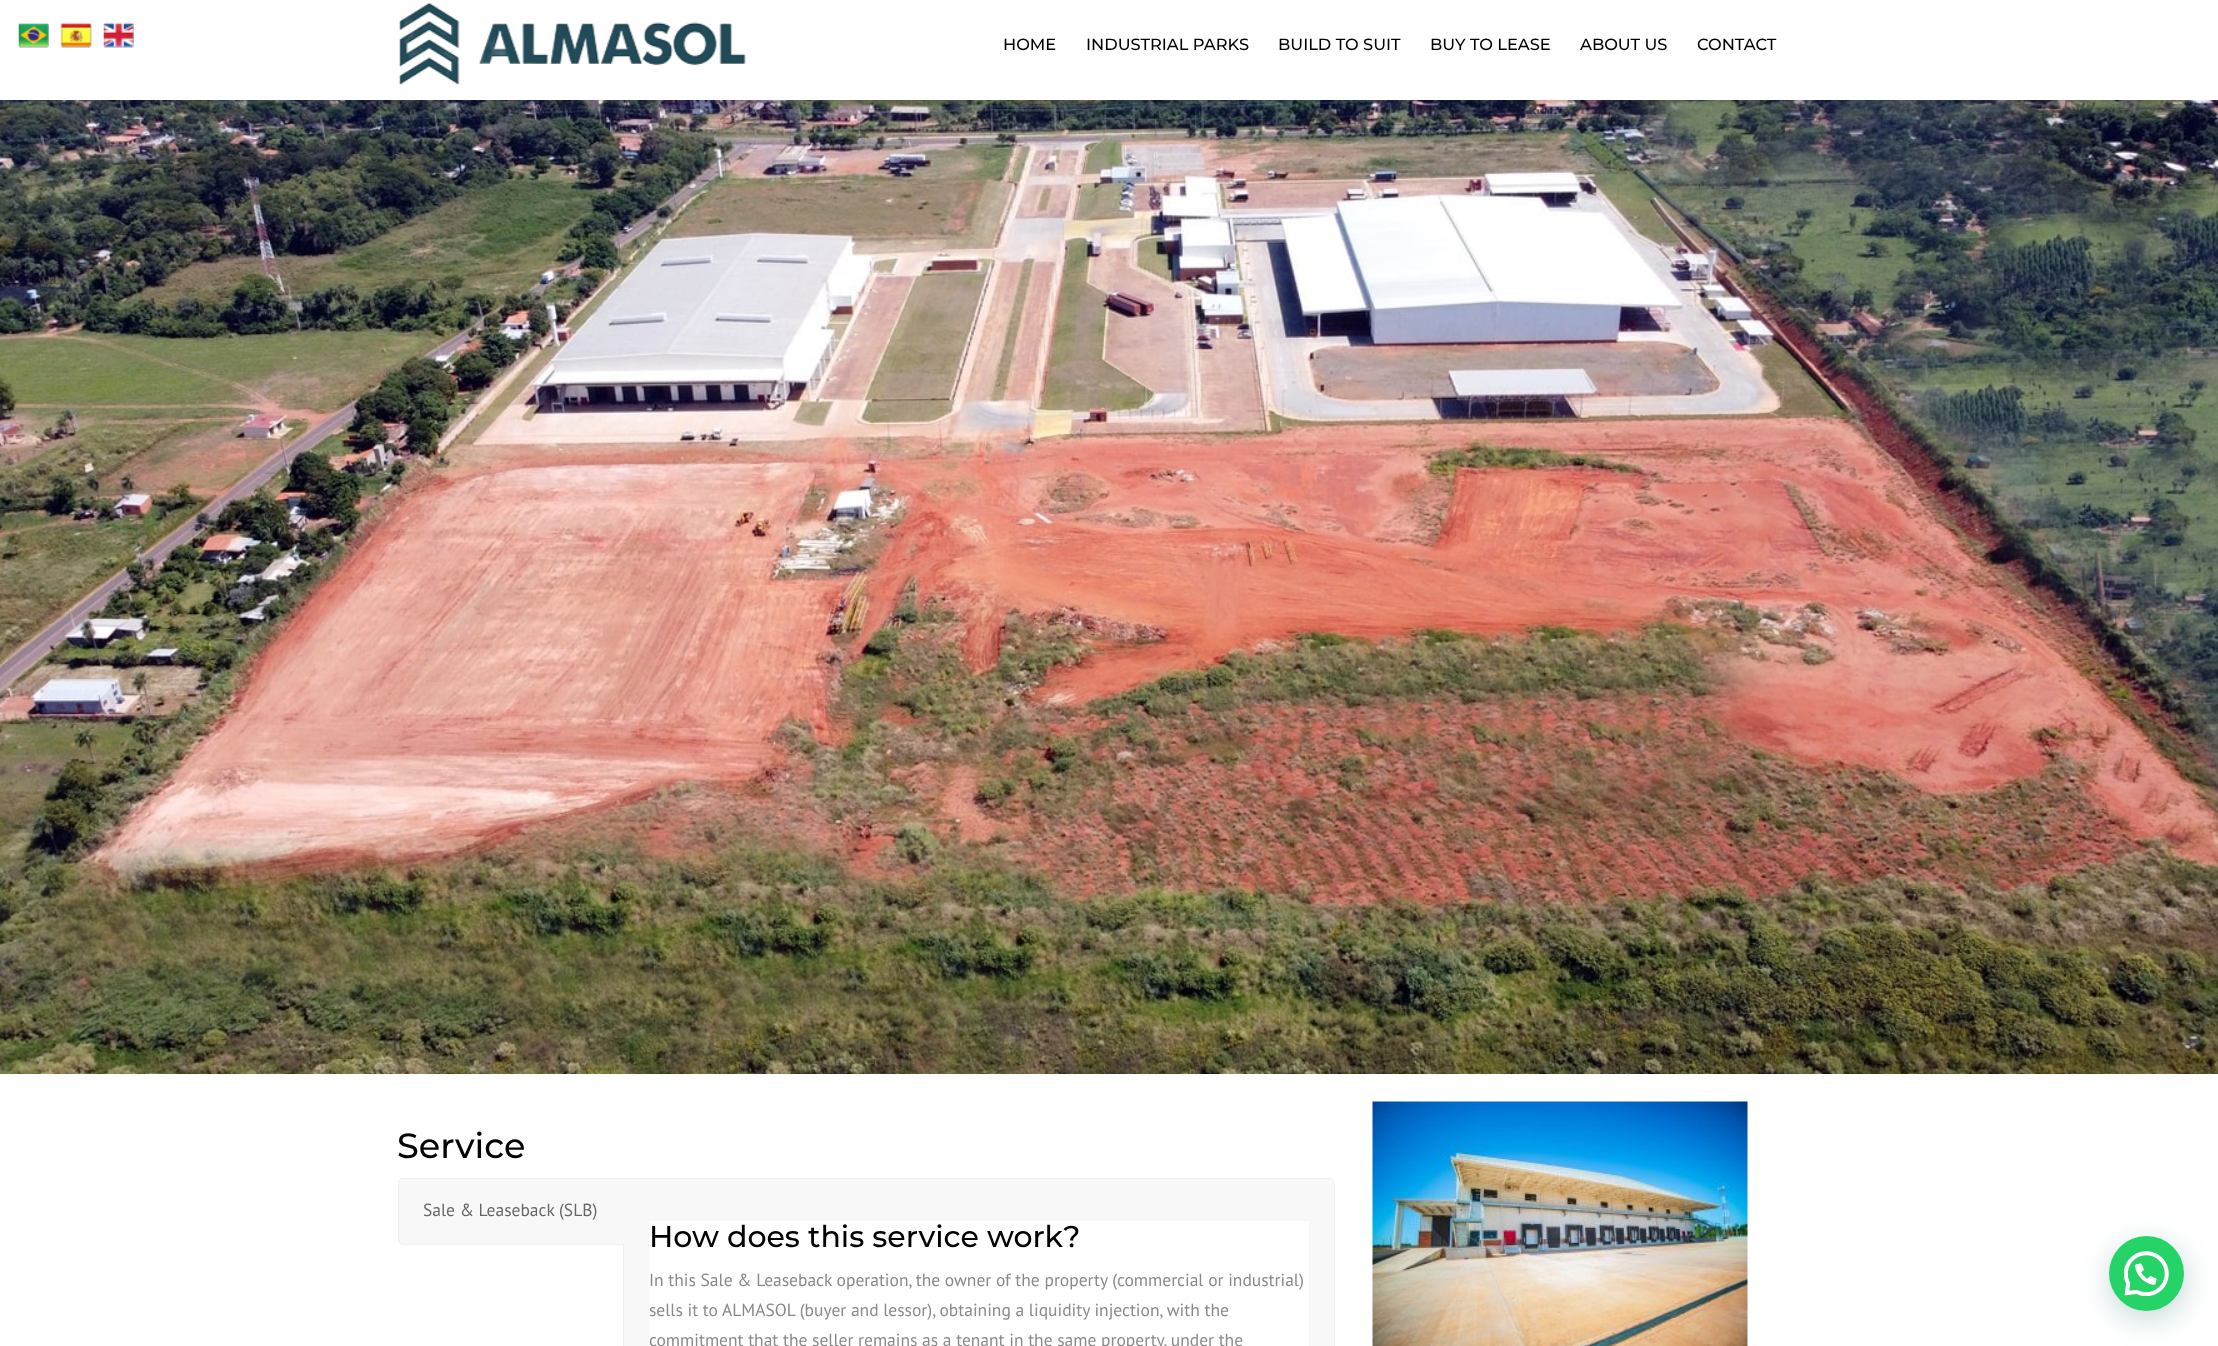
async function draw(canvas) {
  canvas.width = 2218
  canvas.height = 1346
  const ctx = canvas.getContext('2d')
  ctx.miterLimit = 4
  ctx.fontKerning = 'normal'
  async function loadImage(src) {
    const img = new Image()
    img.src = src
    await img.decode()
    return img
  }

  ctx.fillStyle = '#fff'
  ctx.fillRect(0, 0, 2218, 1346)
  ctx.drawImage(await loadImage('image5.png'), 0, 100, 2218, 974)
  ctx.fillStyle = '#00000026'
  ctx.filter = 'blur(2.5px)'
  ctx.beginPath()
  ctx.rect(1, 0, 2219, 100)
  ctx.fill()
  ctx.filter = 'none'
  ctx.fillStyle = '#fff'
  ctx.fillRect(0, 0, 2218, 100)
  ctx.drawImage(await loadImage('image0.png'), 18, 22, 31, 26)
  ctx.drawImage(await loadImage('image1.png'), 60, 22, 32, 26)
  ctx.drawImage(await loadImage('image2.png'), 103, 22, 31, 26)
  ctx.fillStyle = '#075e543d'
  ctx.filter = 'blur(15px)'
  ctx.beginPath()
  ctx.roundRect(2110, 1244, 75, 75, 37.5)
  ctx.fill()
  ctx.filter = 'none'
  ctx.fillStyle = '#25d366'
  ctx.beginPath()
  ctx.arc(2146.5, 1273.5, 37.5, 0, 2 * Math.PI)
  ctx.fill()
  ctx.drawImage(await loadImage('image3.png'), 2124, 1251, 45, 45)
  ctx.drawImage(await loadImage('image4.png'), 398, 2, 348, 83)
  ctx.font = '500 16.25px Montserrat'
  ctx.fillStyle = '#000'
  ctx.fillText('HOME', 1003, 50)
  ctx.fillText('INDUSTRIAL PARKS', 1086, 50)
  ctx.fillText('BUILD TO SUIT', 1278, 50)
  ctx.fillText('BUY TO LEASE', 1430, 50)
  ctx.fillText('ABOUT US', 1580, 50)
  ctx.fillText('CONTACT', 1697, 50)
  ctx.font = '500 35px Montserrat'
  ctx.fillText('Service', 397, 1158)
  ctx.fillStyle = '#f8f8f8'
  ctx.beginPath()
  ctx.moveTo(623.5, 1178.5)
  ctx.lineTo(1329, 1178.5)
  ctx.bezierCurveTo(1332, 1178.5, 1334.5, 1181, 1334.5, 1184)
  ctx.lineTo(1334.5, 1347)
  ctx.bezierCurveTo(1334.5, 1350, 1332, 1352.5, 1329, 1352.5)
  ctx.lineTo(629, 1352.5)
  ctx.bezierCurveTo(626, 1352.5, 623.5, 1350, 623.5, 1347)
  ctx.closePath()
  ctx.fill()
  ctx.strokeStyle = '#f0f0f0'
  ctx.stroke()
  ctx.beginPath()
  ctx.roundRect(398, 1178, 226, 67, [6, 0, 0, 6])
  ctx.fill()
  ctx.fillStyle = '#f0f0f0'
  ctx.beginPath()
  ctx.moveTo(404, 1178)
  ctx.bezierCurveTo(402, 1178, 400, 1178, 400, 1180)
  ctx.bezierCurveTo(401, 1180, 402, 1179, 404, 1179)
  ctx.lineTo(622, 1179)
  ctx.lineTo(623, 1178)
  ctx.closePath()
  ctx.fill()
  ctx.beginPath()
  ctx.moveTo(624, 1245)
  ctx.lineTo(622, 1243)
  ctx.lineTo(622, 1244)
  ctx.lineTo(404, 1244)
  ctx.bezierCurveTo(402, 1244, 401, 1243, 400, 1242)
  ctx.lineTo(399, 1243)
  ctx.bezierCurveTo(400, 1244, 402, 1245, 404, 1245)
  ctx.closePath()
  ctx.fill()
  ctx.beginPath()
  ctx.moveTo(400, 1180)
  ctx.bezierCurveTo(398, 1180, 398, 1182, 398, 1184)
  ctx.lineTo(398, 1239)
  ctx.bezierCurveTo(398, 1240, 398, 1242, 399, 1243)
  ctx.lineTo(400, 1242)
  ctx.bezierCurveTo(398, 1239, 399, 1231, 399, 1230)
  ctx.lineTo(399, 1183)
  ctx.closePath()
  ctx.fill()
  ctx.fillRect(623, 1178, 1, 1)
  ctx.font = '17.5px PT Sans'
  ctx.fillStyle = '#666'
  ctx.fillText('Sale & Leaseback (SLB)', 423, 1216)
  ctx.fillStyle = '#f0f0f0'
  ctx.fillRect(623, 1244, 1, 1)
  ctx.fillStyle = '#fff'
  ctx.fillRect(649, 1221, 660, 125)
  ctx.font = '500 30px Montserrat'
  ctx.fillStyle = '#000'
  ctx.fillText('How does this service work?', 649, 1247)
  ctx.font = '17.5px PT Sans'
  ctx.fillStyle = '#898989'
  ctx.fillText('In this Sale & Leaseback operation, the owner of the property (commercial or industrial)', 649, 1286)
  ctx.fillText('sells it to ALMASOL (buyer and lessor), obtaining a liquidity injection, with the', 649, 1316)
  ctx.fillText('commitment that the seller remains as a tenant in the same property, under the', 649, 1346)
  ctx.drawImage(await loadImage('image6.png'), 1372, 1101, 376, 245)
}

draw(document.querySelector('canvas'))
